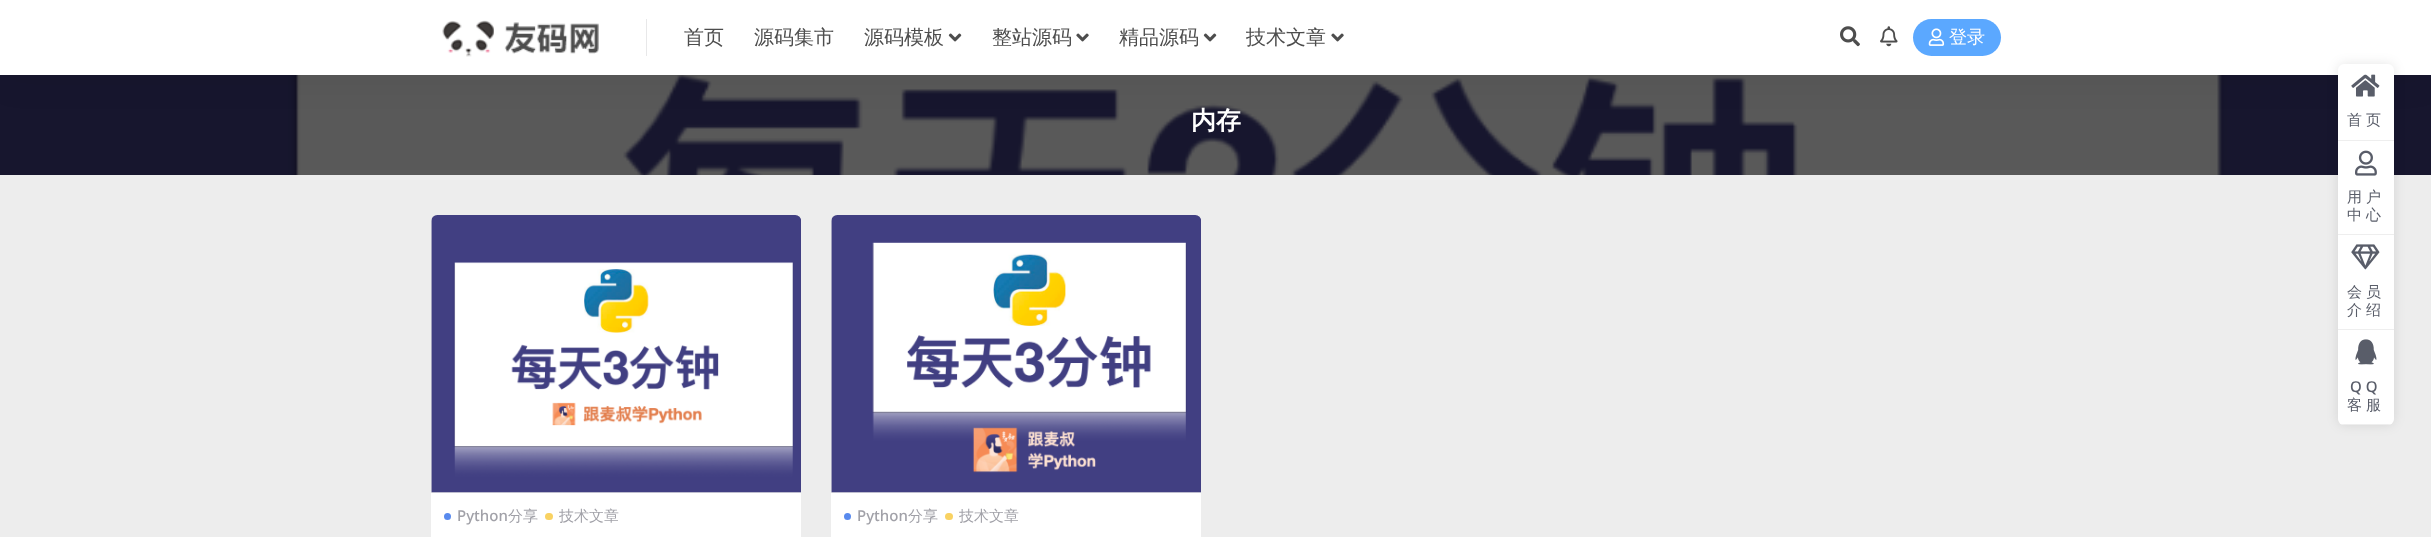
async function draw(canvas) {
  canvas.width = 2431
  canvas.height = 537
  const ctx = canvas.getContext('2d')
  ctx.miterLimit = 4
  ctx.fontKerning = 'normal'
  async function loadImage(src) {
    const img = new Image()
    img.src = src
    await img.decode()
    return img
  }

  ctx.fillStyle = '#ededed'
  ctx.fillRect(0, 0, 2431, 537)
  ctx.drawImage(await loadImage('image6.png'), 0, 75, 2431, 100)
  ctx.fillStyle = '#00000012'
  ctx.filter = 'blur(19px)'
  ctx.beginPath()
  ctx.rect(0, 0, 2431, 75)
  ctx.fill()
  ctx.filter = 'none'
  ctx.fillStyle = '#fff'
  ctx.fillRect(0, 0, 2431, 75)
  ctx.drawImage(await loadImage('image0.png'), 442, 20, 157, 37)
  ctx.fillStyle = '#e8e8e9'
  ctx.fillRect(646, 19, 1, 37)
  ctx.font = '500 20px WenQuanYi Zen Hei'
  ctx.fillStyle = '#4d4d4d'
  ctx.fillText('首页', 684, 44)
  ctx.fillText('源码集市', 754, 44)
  ctx.fillText('源码模板', 864, 44)
  ctx.drawImage(await loadImage('image1.png'), 948, 33, 14, 9)
  ctx.fillText('整站源码', 992, 44)
  ctx.drawImage(await loadImage('image2.png'), 1076, 33, 13, 9)
  ctx.fillText('精品源码', 1119, 44)
  ctx.drawImage(await loadImage('image1.png'), 1203, 33, 14, 9)
  ctx.fillText('技术文章', 1246, 44)
  ctx.drawImage(await loadImage('image2.png'), 1331, 33, 13, 9)
  ctx.drawImage(await loadImage('image3.png'), 1840, 26, 20, 21)
  ctx.drawImage(await loadImage('image4.png'), 1880, 26, 18, 21)
  ctx.fillStyle = '#5ba8ff'
  ctx.beginPath()
  ctx.roundRect(1913, 19, 88, 37, 18.5)
  ctx.fill()
  ctx.drawImage(await loadImage('image5.png'), 1928, 28, 17, 18)
  ctx.font = '500 18px WenQuanYi Zen Hei'
  ctx.fillStyle = '#fff'
  ctx.fillText('登录', 1949, 43)
  ctx.font = 'bold 25px WenQuanYi Zen Hei'
  ctx.fillText('内存', 1191, 129)
  ctx.beginPath()
  ctx.roundRect(431, 215, 370, 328, 6)
  ctx.fill()
  ctx.fillStyle = '#e7e7e7'
  ctx.beginPath()
  ctx.roundRect(431, 215, 370, 278, [6, 6, 0, 0])
  ctx.fill()
  ctx.drawImage(await loadImage('image7.png'), 431, 215, 370, 278)
  ctx.fillStyle = '#598aee'
  ctx.beginPath()
  ctx.arc(447.5, 516.5, 3.5, 0, 2 * Math.PI)
  ctx.fill()
  ctx.font = '500 15px Noto Sans'
  ctx.fillStyle = '#a1a1a8'
  ctx.fillText('Python', 457, 521)
  ctx.font = '500 15px WenQuanYi Zen Hei'
  ctx.fillText('分享', 508, 521)
  ctx.fillStyle = '#f9d262'
  ctx.beginPath()
  ctx.roundRect(545, 513, 8, 7, 3.5)
  ctx.fill()
  ctx.fillStyle = '#a1a1a8'
  ctx.fillText('技术文章', 559, 521)
  ctx.fillStyle = '#fff'
  ctx.beginPath()
  ctx.roundRect(831, 215, 370, 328, 6)
  ctx.fill()
  ctx.fillStyle = '#e7e7e7'
  ctx.beginPath()
  ctx.roundRect(831, 215, 370, 278, [6, 6, 0, 0])
  ctx.fill()
  ctx.drawImage(await loadImage('image8.png'), 831, 215, 370, 278)
  ctx.fillStyle = '#598aee'
  ctx.beginPath()
  ctx.arc(847.5, 516.5, 3.5, 0, 2 * Math.PI)
  ctx.fill()
  ctx.font = '500 15px Noto Sans'
  ctx.fillStyle = '#a1a1a8'
  ctx.fillText('Python', 857, 521)
  ctx.font = '500 15px WenQuanYi Zen Hei'
  ctx.fillText('分享', 908, 521)
  ctx.fillStyle = '#f9d262'
  ctx.beginPath()
  ctx.roundRect(945, 513, 8, 7, 3.5)
  ctx.fill()
  ctx.fillStyle = '#a1a1a8'
  ctx.fillText('技术文章', 959, 521)
  ctx.fillStyle = '#0000001a'
  ctx.filter = 'blur(6px)'
  ctx.beginPath()
  ctx.roundRect(2338, 64, 56, 361, 6)
  ctx.fill()
  ctx.filter = 'none'
  ctx.fillStyle = '#fff'
  ctx.beginPath()
  ctx.roundRect(2338, 64, 56, 77, [6, 6, 0, 0])
  ctx.fill()
  ctx.fillStyle = '#eee'
  ctx.fillRect(2338, 140, 56, 1)
  ctx.drawImage(await loadImage('image9.png'), 2351, 74, 29, 23)
  ctx.letterSpacing = '4px'
  ctx.fillStyle = '#595d69'
  ctx.fillText('首页', 2347, 125)
  ctx.fillStyle = '#fff'
  ctx.fillRect(2338, 141, 56, 93)
  ctx.fillStyle = '#eee'
  ctx.fillRect(2338, 234, 56, 1)
  ctx.drawImage(await loadImage('image10.png'), 2355, 150, 22, 26)
  ctx.fillStyle = '#595d69'
  ctx.fillText('用户', 2347, 202)
  ctx.fillText('中心', 2347, 220)
  ctx.fillStyle = '#fff'
  ctx.fillRect(2338, 235, 56, 94)
  ctx.fillStyle = '#eee'
  ctx.fillRect(2338, 329, 56, 1)
  ctx.drawImage(await loadImage('image11.png'), 2351, 244, 29, 26)
  ctx.fillStyle = '#595d69'
  ctx.fillText('会员', 2347, 297)
  ctx.fillText('介绍', 2347, 315)
  ctx.fillStyle = '#fff'
  ctx.beginPath()
  ctx.roundRect(2338, 330, 56, 95, [0, 0, 6, 6])
  ctx.fill()
  ctx.save()
  ctx.beginPath()
  ctx.roundRect(2338, 64, 56, 361, 6)
  ctx.clip()
  ctx.fillStyle = '#eee'
  ctx.fillRect(2338, 424, 56, 1)
  ctx.restore()
  ctx.drawImage(await loadImage('image12.png'), 2355, 339, 22, 26)
  ctx.font = '500 15px Noto Sans'
  ctx.fillStyle = '#595d69'
  ctx.fillText('QQ', 2350, 392)
  ctx.font = '500 15px WenQuanYi Zen Hei'
  ctx.fillText('客服', 2347, 410)
}

draw(document.querySelector('canvas'))
